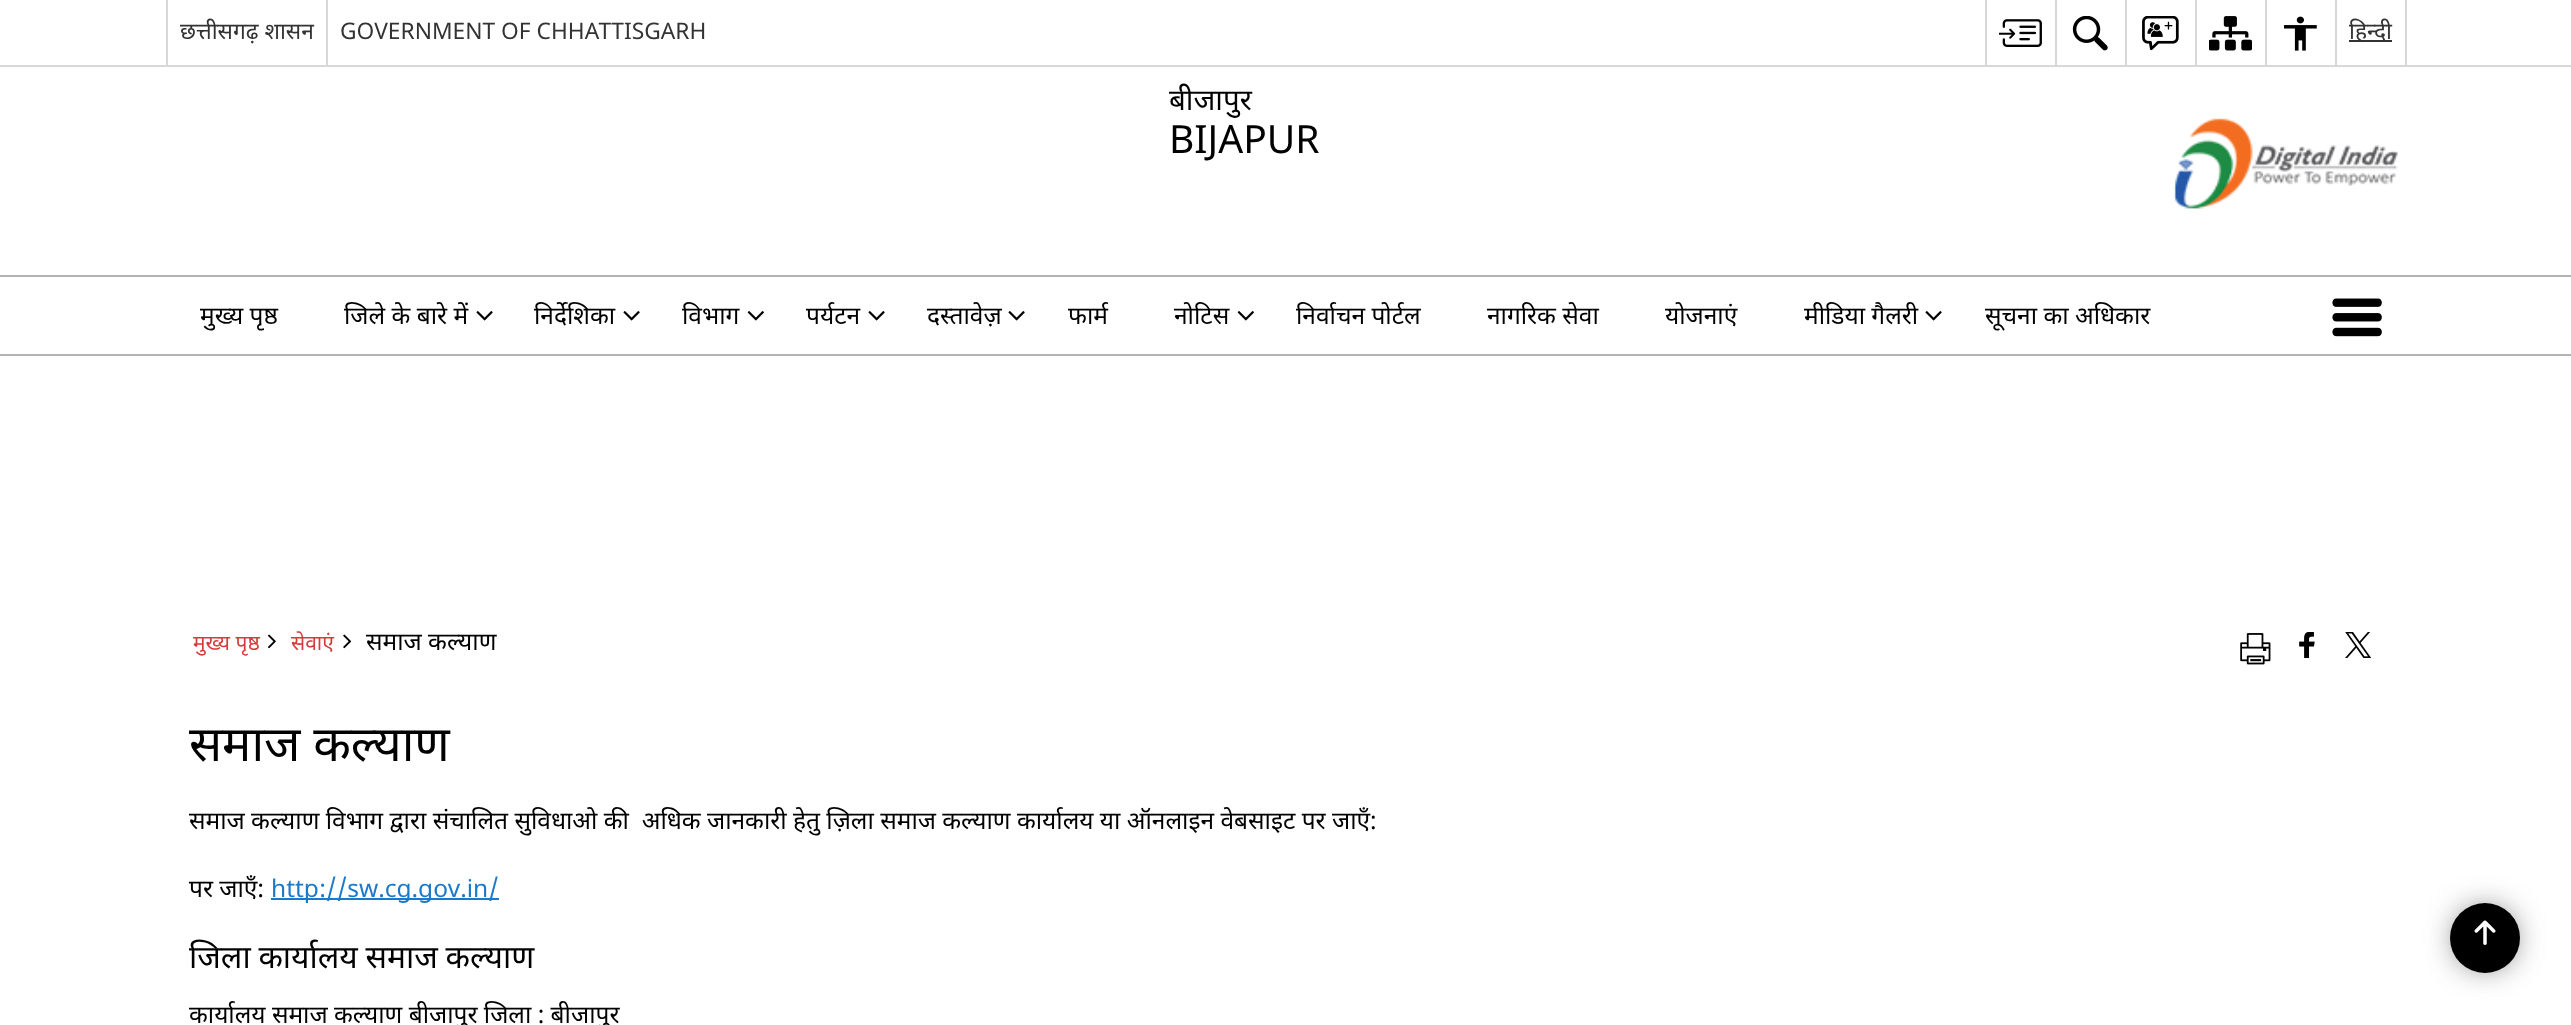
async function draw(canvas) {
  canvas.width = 2571
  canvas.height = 1025
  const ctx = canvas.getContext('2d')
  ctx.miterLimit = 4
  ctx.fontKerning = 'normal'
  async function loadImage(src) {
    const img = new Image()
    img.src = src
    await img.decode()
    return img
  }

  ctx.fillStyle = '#fff'
  ctx.fillRect(0, 0, 2571, 1025)
  ctx.fillStyle = '#d8d8d8'
  ctx.fillRect(0, 65, 2571, 2)
  ctx.fillRect(166, 0, 2, 65)
  ctx.font = '22.75px Noto Sans'
  ctx.fillStyle = '#333'
  ctx.fillText('छत्तीसगढ़ शासन', 180, 39)
  ctx.fillStyle = '#d8d8d8'
  ctx.fillRect(326, 0, 2, 65)
  ctx.font = '22.75px "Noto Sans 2"'
  ctx.fillStyle = '#333'
  ctx.fillText('GOVERNMENT OF CHHATTISGARH', 340, 39)
  ctx.fillStyle = '#d8d8d8'
  ctx.fillRect(1985, 0, 2, 65)
  ctx.drawImage(await loadImage('image0.png'), 1999, 19, 43, 28)
  ctx.fillRect(2055, 0, 2, 65)
  ctx.drawImage(await loadImage('image1.png'), 2072, 16, 36, 35)
  ctx.fillRect(2125, 0, 2, 65)
  ctx.drawImage(await loadImage('image2.png'), 2142, 16, 37, 35)
  ctx.fillRect(2195, 0, 2, 65)
  ctx.drawImage(await loadImage('image3.png'), 2209, 16, 43, 35)
  ctx.fillRect(2265, 0, 2, 65)
  ctx.drawImage(await loadImage('image4.png'), 2284, 16, 33, 35)
  ctx.fillRect(2405, 0, 2, 65)
  ctx.fillRect(2335, 0, 2, 65)
  ctx.fillStyle = '#333'
  ctx.fillRect(2349, 40, 43, 2)
  ctx.font = '22.75px Noto Sans'
  ctx.fillText('हिन्दी', 2349, 39)
  ctx.font = '29.5px Noto Sans'
  ctx.fillStyle = '#000'
  ctx.fillText('बीजापुर', 1169, 110)
  ctx.font = '39px "Noto Sans 2"'
  ctx.fillText('BIJAPUR', 1169, 153)
  ctx.drawImage(await loadImage('image5.png'), 2174, 118, 224, 91)
  ctx.fillStyle = '#b3b3b3'
  ctx.fillRect(0, 275, 2571, 2)
  ctx.fillRect(0, 354, 2571, 2)
  ctx.font = '24.5px Noto Sans'
  ctx.fillStyle = '#000'
  ctx.fillText('मुख्य पृष्ठ', 200, 324)
  ctx.fillText('जिले के बारे में', 344, 324)
  ctx.drawImage(await loadImage('image6.png'), 476, 311, 17, 10)
  ctx.fillText('निर्देशिका', 534, 324)
  ctx.drawImage(await loadImage('image6.png'), 623, 311, 17, 10)
  ctx.fillText('विभाग', 682, 324)
  ctx.drawImage(await loadImage('image7.png'), 747, 311, 17, 10)
  ctx.fillText('पर्यटन', 806, 324)
  ctx.drawImage(await loadImage('image6.png'), 868, 311, 17, 10)
  ctx.fillText('दस्तावेज़', 927, 324)
  ctx.drawImage(await loadImage('image6.png'), 1008, 311, 17, 10)
  ctx.fillText('फार्म', 1068, 324)
  ctx.fillText('नोटिस', 1174, 324)
  ctx.drawImage(await loadImage('image7.png'), 1237, 311, 17, 10)
  ctx.fillText('निर्वाचन पोर्टल', 1296, 324)
  ctx.fillText('नागरिक सेवा', 1487, 324)
  ctx.fillText('योजनाएं', 1665, 324)
  ctx.fillText('मीडिया गैलरी', 1804, 324)
  ctx.drawImage(await loadImage('image6.png'), 1925, 311, 17, 10)
  ctx.fillText('सूचना का अधिकार', 1985, 324)
  ctx.drawImage(await loadImage('image8.png'), 2332, 298, 50, 39)
  ctx.font = '21px Noto Sans'
  ctx.fillStyle = '#d43c3c'
  ctx.fillText('मुख्य पृष्ठ', 193, 650)
  ctx.drawImage(await loadImage('image9.png'), 268, 634, 8, 15)
  ctx.fillText('सेवाएं', 291, 650)
  ctx.drawImage(await loadImage('image10.png'), 343, 634, 9, 15)
  ctx.font = '24.5px Noto Sans'
  ctx.fillStyle = '#000'
  ctx.fillText('समाज कल्याण', 366, 650)
  ctx.drawImage(await loadImage('image11.png'), 2240, 633, 31, 32)
  ctx.drawImage(await loadImage('image12.png'), 2299, 632, 16, 26)
  ctx.drawImage(await loadImage('image13.png'), 2345, 632, 26, 26)
  ctx.font = '49px Noto Sans'
  ctx.fillText('समाज कल्याण', 189, 761)
  ctx.font = '24.5px Noto Sans'
  ctx.fillText('समाज कल्याण विभाग द्वारा संचालित सुविधाओ की  अधिक जानकारी हेतु ज़िला समाज कल्याण कार्यालय या ऑनलाइन वेबसाइट पर जाएँ:', 189, 829)
  ctx.fillText('पर जाएँ', 189, 897)
  ctx.font = '24.5px "Noto Sans 2"'
  ctx.fillText(':', 257, 897)
  ctx.fillStyle = '#1b79ca'
  ctx.fillRect(271, 898, 228, 2)
  ctx.fillText('http://sw.cg.gov.in/', 271, 897)
  ctx.wordSpacing = '-0.5px'
  ctx.font = '31.8px Noto Sans'
  ctx.fillStyle = '#000'
  ctx.fillText('जिला कार्यालय समाज कल्याण', 189, 968)
  ctx.wordSpacing = '0px'
  ctx.font = '24.5px Noto Sans'
  ctx.fillText('कार्यालय समाज कल्याण बीजापुर जिला : बीजापुर', 189, 1023)
  ctx.fillStyle = '#3c3c3c'
  ctx.filter = 'blur(16.5px)'
  ctx.beginPath()
  ctx.roundRect(2459, 912, 52, 52, 26)
  ctx.fill()
  ctx.filter = 'none'
  ctx.fillStyle = '#000'
  ctx.beginPath()
  ctx.arc(2485, 938, 35, 0, 2 * Math.PI)
  ctx.fill()
  ctx.drawImage(await loadImage('image14.png'), 2474, 920, 22, 25)
}

draw(document.querySelector('canvas'))
